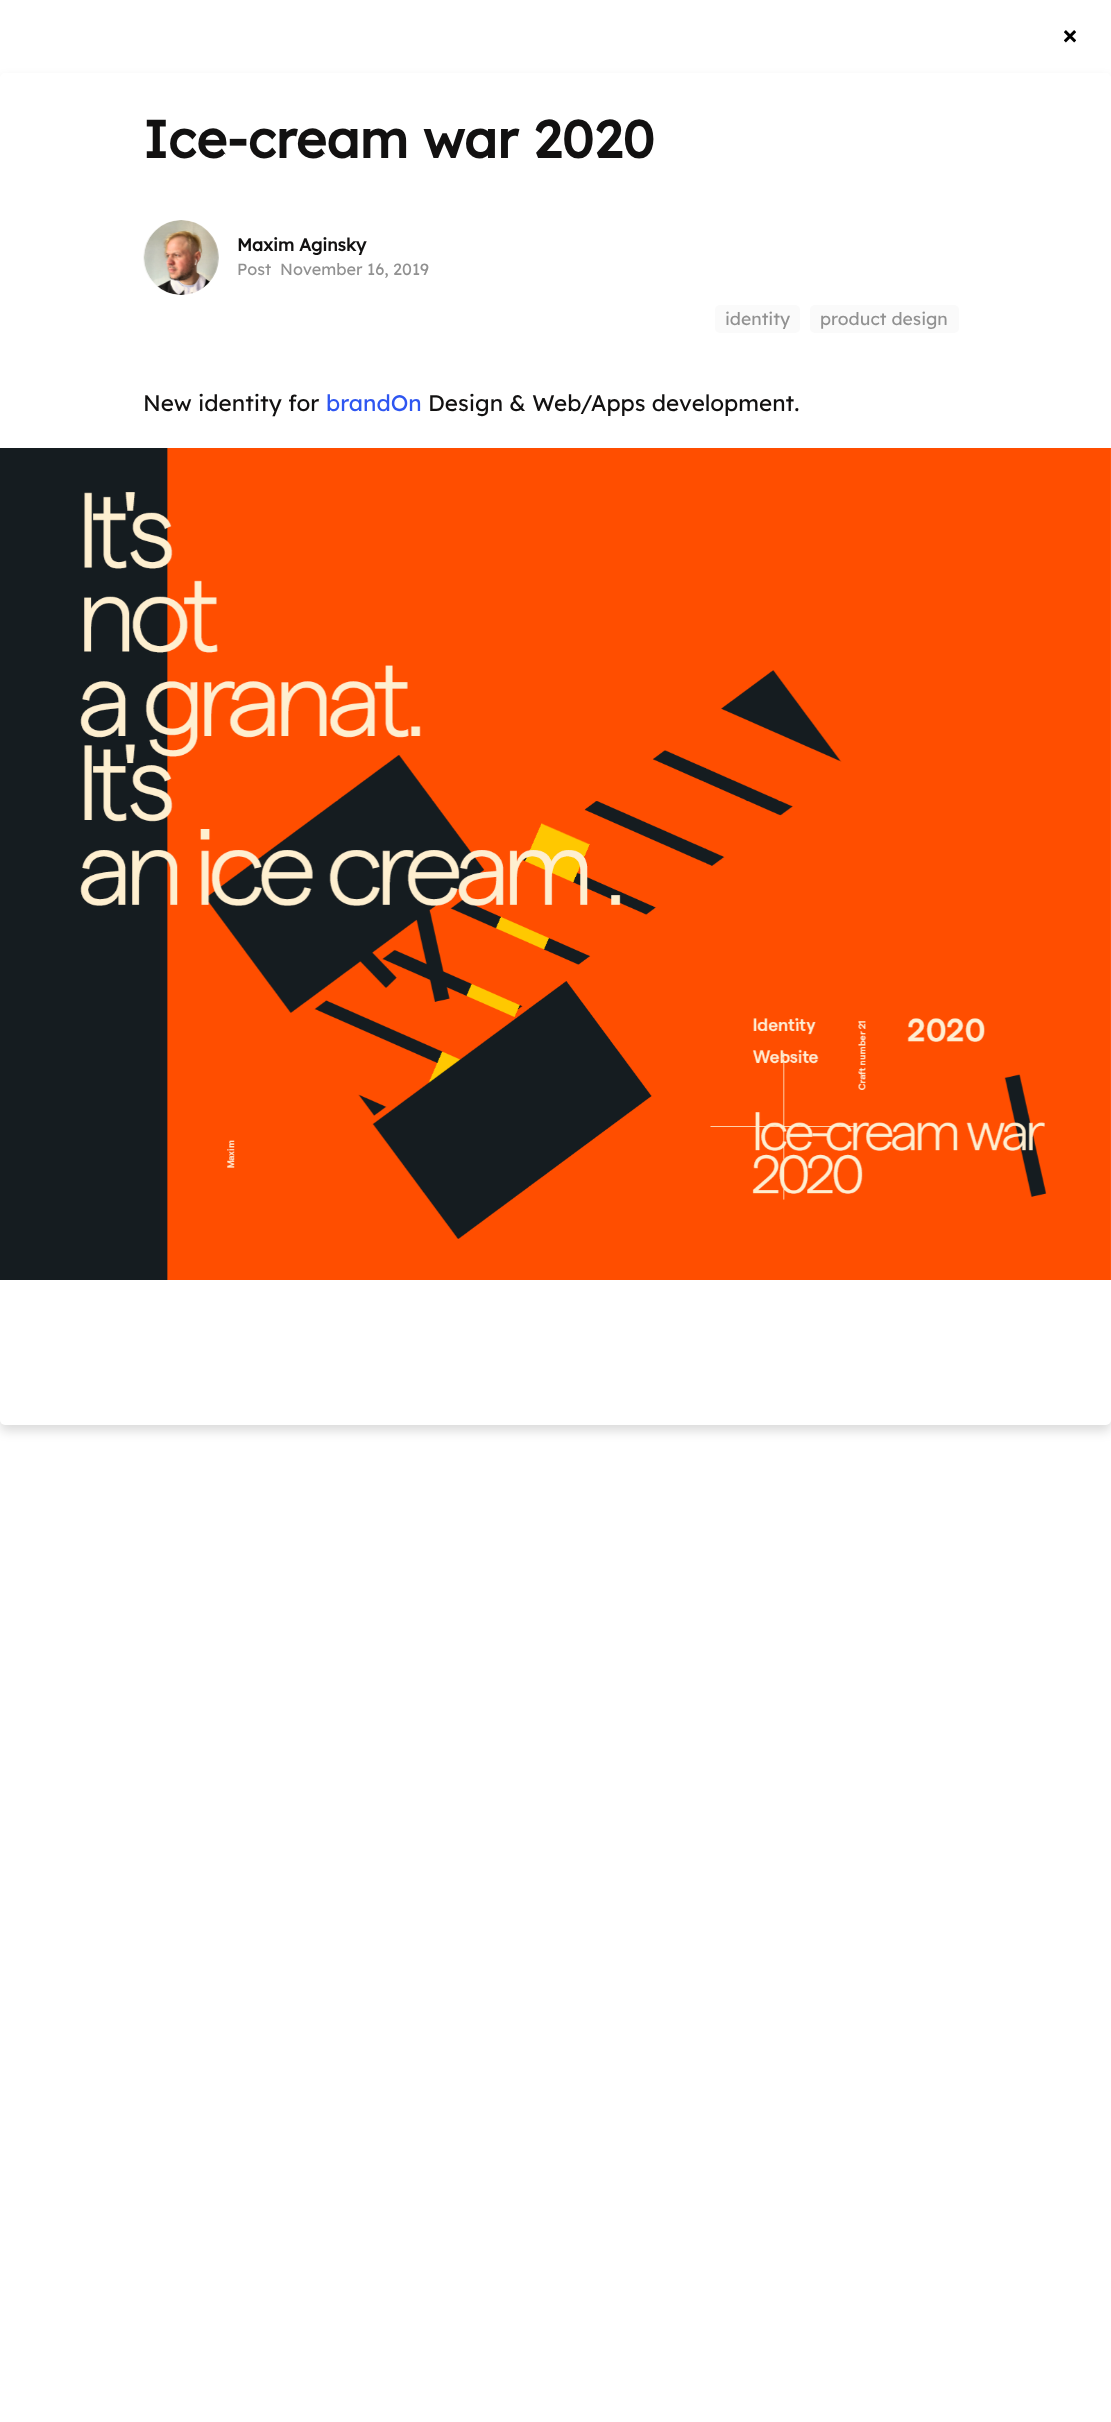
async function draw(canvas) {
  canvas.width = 1111
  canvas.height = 2422
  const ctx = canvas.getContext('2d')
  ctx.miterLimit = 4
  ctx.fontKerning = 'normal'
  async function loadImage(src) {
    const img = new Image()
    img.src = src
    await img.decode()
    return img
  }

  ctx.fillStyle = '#fff'
  ctx.fillRect(0, 0, 1111, 2422)
  ctx.drawImage(await loadImage('image0.png'), 1064, 30, 12, 13)
  ctx.fillStyle = '#00000024'
  ctx.filter = 'blur(5.5px)'
  ctx.beginPath()
  ctx.roundRect(0, 79, 1111, 1352, 5)
  ctx.fill()
  ctx.filter = 'none'
  ctx.fillStyle = '#fff'
  ctx.beginPath()
  ctx.roundRect(0, 73, 1111, 1352, 5)
  ctx.fill()
  ctx.font = 'bold 52.5px Lexend Deca'
  ctx.fillStyle = '#121111'
  ctx.fillText('Ice-cream war 2020', 143, 158)
  ctx.drawImage(await loadImage('image1.png'), 143, 220, 76, 75)
  ctx.font = 'bold 17.5px Lexend Deca'
  ctx.fillText('Maxim Aginsky', 237, 251)
  ctx.font = '16.25px Lexend Deca'
  ctx.fillStyle = '#919191'
  ctx.fillText('Post', 237, 275)
  ctx.fillText('November 16, 2019', 280, 275)
  ctx.fillStyle = '#fafafa'
  ctx.beginPath()
  ctx.roundRect(715, 305, 85, 28, 5)
  ctx.fill()
  ctx.font = '17.5px Lexend Deca'
  ctx.fillStyle = '#919191'
  ctx.fillText('identity', 725, 325)
  ctx.fillStyle = '#fafafa'
  ctx.beginPath()
  ctx.roundRect(810, 305, 149, 28, 5)
  ctx.fill()
  ctx.fillStyle = '#919191'
  ctx.fillText('product design', 820, 325)
  ctx.font = '22.5px Lexend Deca'
  ctx.fillStyle = '#121111'
  ctx.fillText('New identity for', 143, 411)
  ctx.fillStyle = '#2e56f1'
  ctx.fillText('brandOn', 326, 411)
  ctx.fillStyle = '#121111'
  ctx.fillText('Design & Web/Apps development.', 428, 411)
  ctx.drawImage(await loadImage('image2.png'), 0, 448, 1111, 832)
}

draw(document.querySelector('canvas'))
